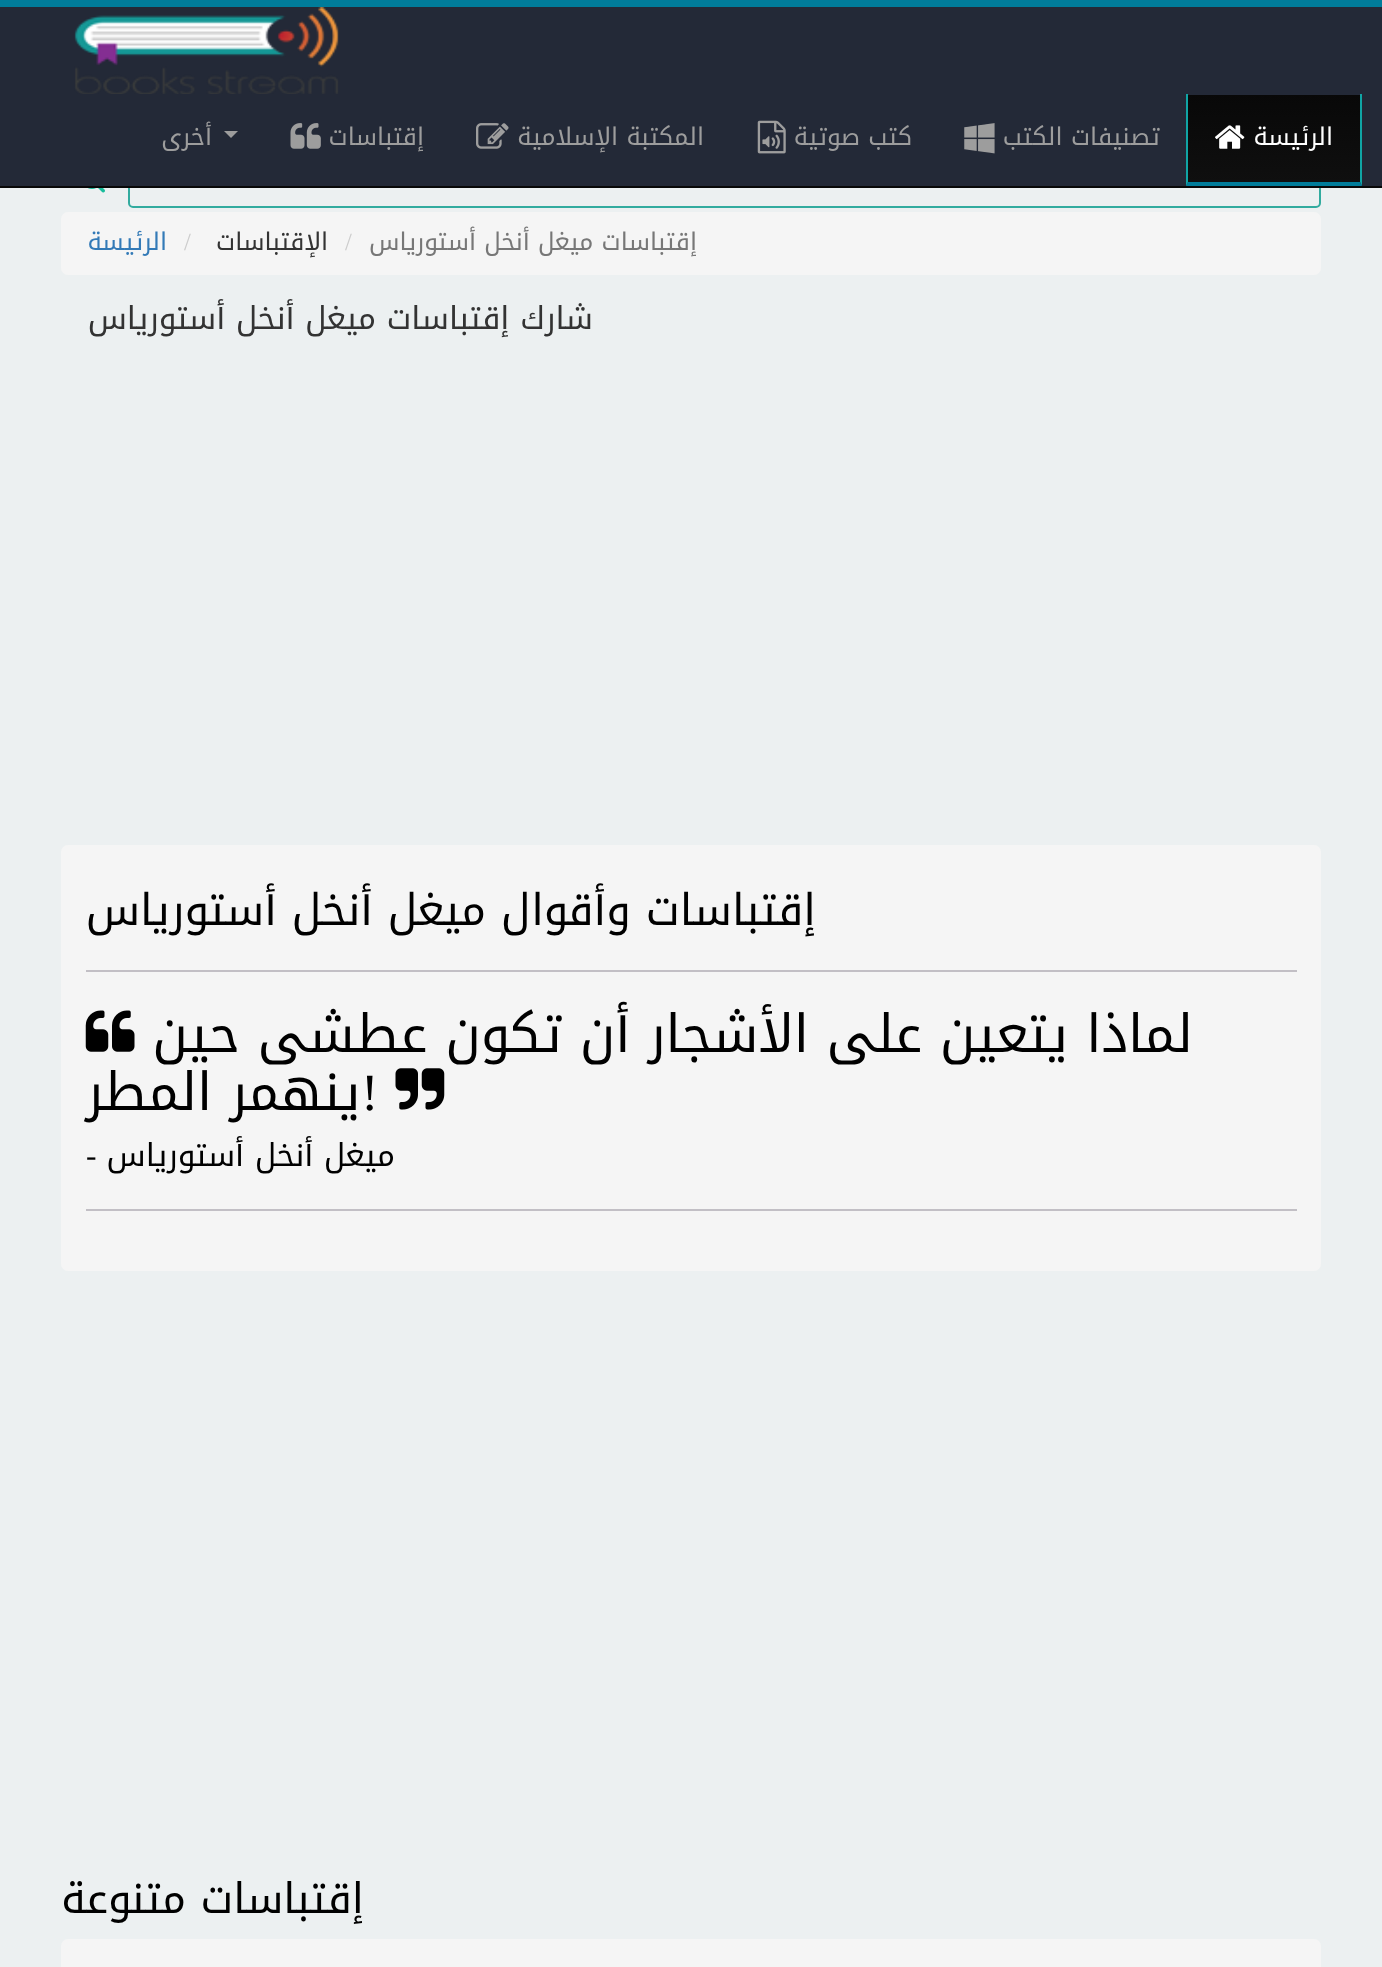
async function draw(canvas) {
  canvas.width = 1382
  canvas.height = 1967
  const ctx = canvas.getContext('2d')
  ctx.miterLimit = 4
  ctx.fontKerning = 'normal'
  async function loadImage(src) {
    const img = new Image()
    img.src = src
    await img.decode()
    return img
  }
  let gradient

  ctx.fillStyle = '#ecf0f1'
  ctx.fillRect(0, 0, 1382, 1967)
  ctx.beginPath()
  ctx.roundRect(129, 150, 1191, 57, 4)
  ctx.strokeStyle = '#32ab9f'
  ctx.lineWidth = 2
  ctx.stroke()
  ctx.fillStyle = '#232937'
  ctx.fillRect(0, 7, 1382, 179)
  ctx.fillStyle = '#007c9a'
  ctx.fillRect(0, 0, 1382, 7)
  ctx.fillStyle = '#080808'
  ctx.fillRect(0, 186, 1382, 2)
  ctx.drawImage(await loadImage('image0.png'), 74, 7, 265, 87)
  gradient = ctx.createLinearGradient(1274, 94, 1274, 182)
  gradient.addColorStop(0, '#080808')
  gradient.addColorStop(1, '#0f0f0f')
  ctx.fillStyle = gradient
  ctx.fillRect(1188, 95, 172, 87)
  ctx.fillStyle = '#10a5a5'
  ctx.beginPath()
  ctx.moveTo(1362, 94)
  ctx.lineTo(1362, 186)
  ctx.lineTo(1360, 182)
  ctx.lineTo(1360, 94)
  ctx.closePath()
  ctx.fill()
  ctx.fillStyle = '#007c9a'
  ctx.beginPath()
  ctx.moveTo(1362, 186)
  ctx.lineTo(1186, 186)
  ctx.lineTo(1188, 182)
  ctx.lineTo(1360, 182)
  ctx.closePath()
  ctx.fill()
  ctx.fillStyle = '#10a5a5'
  ctx.beginPath()
  ctx.moveTo(1186, 186)
  ctx.lineTo(1186, 94)
  ctx.lineTo(1188, 94)
  ctx.lineTo(1188, 182)
  ctx.closePath()
  ctx.fill()
  ctx.direction = 'rtl'
  ctx.font = '24.5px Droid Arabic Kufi'
  ctx.fillStyle = '#fff'
  ctx.fillText('الرئيسة', 1333, 145)
  ctx.drawImage(await loadImage('image1.png'), 1215, 125, 30, 24)
  ctx.fillStyle = '#9d9d9d'
  ctx.fillText('تصنيفات الكتب', 1160, 145)
  ctx.drawImage(await loadImage('image2.png'), 964, 123, 31, 31)
  ctx.fillText('كتب صوتية', 912, 145)
  ctx.drawImage(await loadImage('image3.png'), 757, 120, 29, 34)
  ctx.fillText('المكتبة الإسلامية', 704, 145)
  ctx.drawImage(await loadImage('image4.png'), 476, 123, 33, 26)
  ctx.fillText('إقتباسات', 424, 145)
  ctx.drawImage(await loadImage('image5.png'), 290, 123, 31, 26)
  ctx.beginPath()
  ctx.moveTo(224, 131)
  ctx.lineTo(238, 131)
  ctx.lineTo(231, 138)
  ctx.closePath()
  ctx.fill()
  ctx.fillText('أخرى', 212, 145)
  ctx.drawImage(await loadImage('image6.png'), 87, 188, 18, 5)
  ctx.fillStyle = '#f5f5f5'
  ctx.beginPath()
  ctx.roundRect(61, 212, 1260, 63, 7)
  ctx.fill()
  ctx.fillStyle = '#777'
  ctx.fillText('إقتباسات ميغل أنخل أستورياس', 697, 250)
  ctx.direction = 'ltr'
  ctx.font = '24.5px Liberation Serif'
  ctx.fillStyle = '#ccc'
  ctx.fillText('/', 345, 250)
  ctx.direction = 'rtl'
  ctx.font = '24.5px Droid Arabic Kufi'
  ctx.fillStyle = '#333'
  ctx.fillText('الإقتباسات', 328, 250)
  ctx.direction = 'ltr'
  ctx.font = '24.5px Liberation Serif'
  ctx.fillStyle = '#ccc'
  ctx.fillText('/', 184, 250)
  ctx.direction = 'rtl'
  ctx.font = '24.5px Droid Arabic Kufi'
  ctx.fillStyle = '#337ab7'
  ctx.fillText('الرئيسة', 167, 250)
  ctx.font = '31.5px Droid Arabic Kufi'
  ctx.fillStyle = '#333'
  ctx.fillText('شارك إقتباسات ميغل أنخل أستورياس', 593, 329)
  ctx.fillStyle = '#f5f5f5'
  ctx.beginPath()
  ctx.roundRect(61, 845, 1260, 426, 7)
  ctx.fill()
  ctx.font = '43.75px Droid Arabic Kufi'
  ctx.fillStyle = '#000'
  ctx.fillText('إقتباسات وأقوال ميغل أنخل أستورياس', 816, 925)
  ctx.fillStyle = '#c2bfc5'
  ctx.fillRect(86, 970, 1211, 2)
  ctx.font = '52.5px Droid Arabic Kufi'
  ctx.fillStyle = '#000'
  ctx.fillText('لماذا يتعين على الأشجار أن تكون عطشى حين', 1193, 1052)
  ctx.drawImage(await loadImage('image7.png'), 85, 1010, 50, 42)
  ctx.drawImage(await loadImage('image8.png'), 395, 1068, 50, 42)
  ctx.direction = 'ltr'
  ctx.font = '52.5px Liberation Serif'
  ctx.fillText('!', 361, 1110)
  ctx.direction = 'rtl'
  ctx.font = '52.5px Droid Arabic Kufi'
  ctx.fillText('ينهمر المطر', 361, 1110)
  ctx.font = '31.5px Droid Arabic Kufi'
  ctx.fillText('ميغل أنخل أستورياس', 395, 1166)
  ctx.direction = 'ltr'
  ctx.font = '31.5px Liberation Serif'
  ctx.fillText('-', 86, 1166)
  ctx.fillStyle = '#c2bfc5'
  ctx.fillRect(86, 1209, 1211, 2)
  ctx.direction = 'rtl'
  ctx.font = '42px Droid Arabic Kufi'
  ctx.fillStyle = '#000'
  ctx.fillText('إقتباسات متنوعة', 364, 1913)
  ctx.fillStyle = '#f5f5f5'
  ctx.beginPath()
  ctx.roundRect(61, 1939, 1260, 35, 7)
  ctx.fill()
}

draw(document.querySelector('canvas'))
